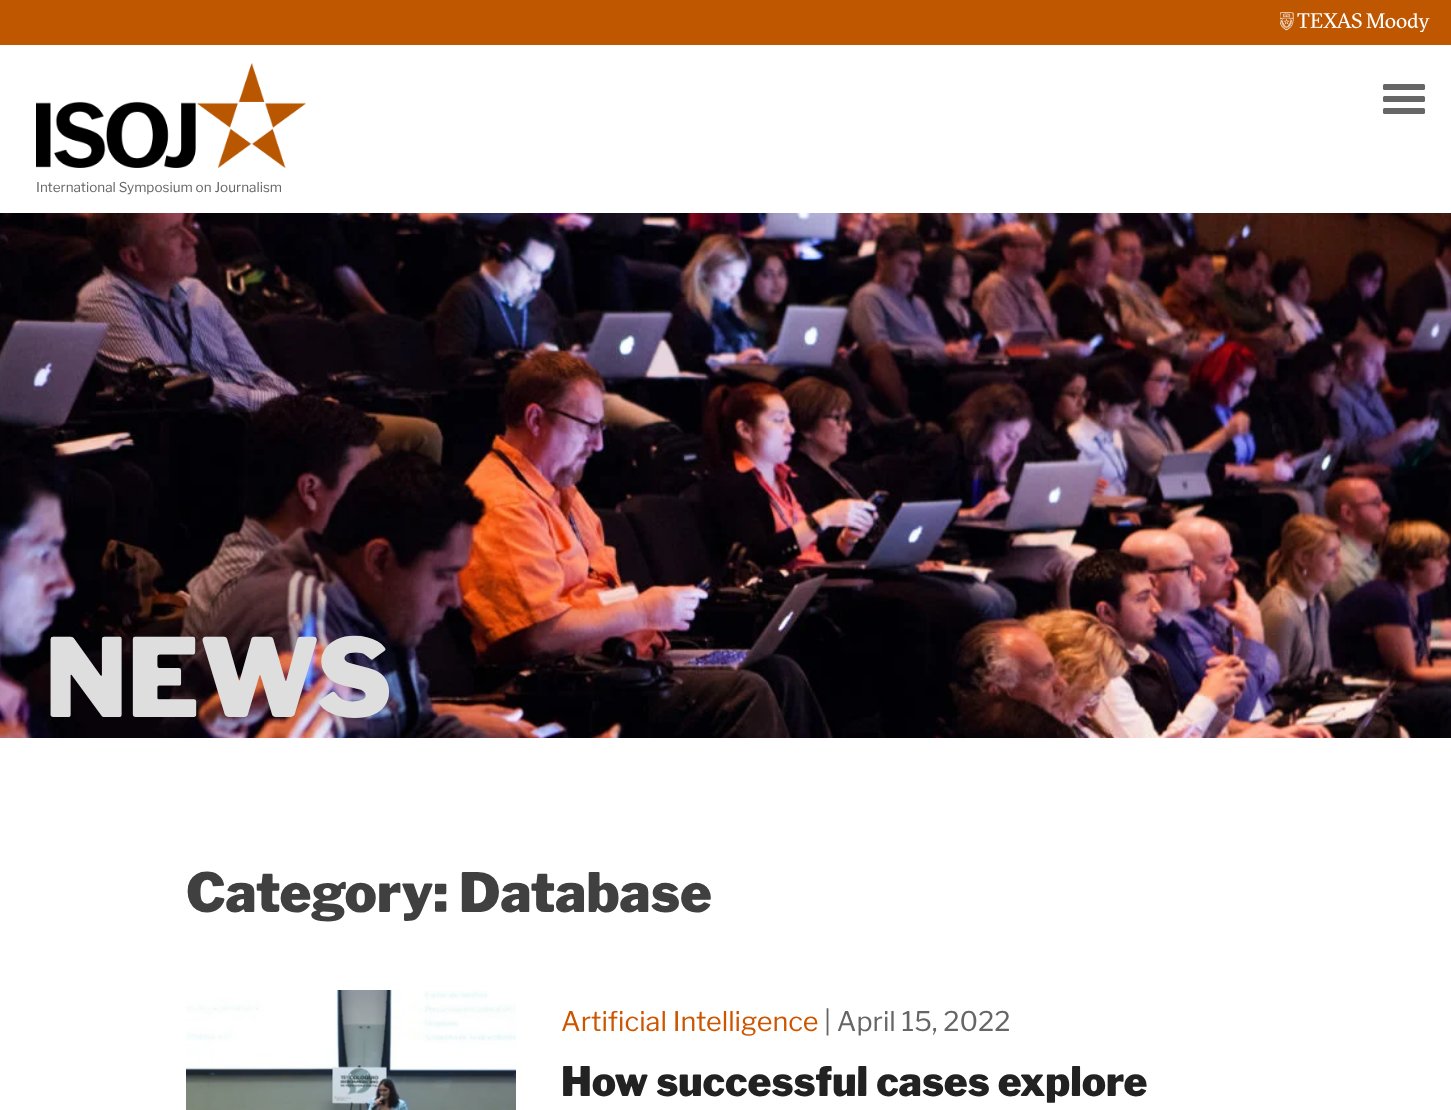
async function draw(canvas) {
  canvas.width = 1451
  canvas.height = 1110
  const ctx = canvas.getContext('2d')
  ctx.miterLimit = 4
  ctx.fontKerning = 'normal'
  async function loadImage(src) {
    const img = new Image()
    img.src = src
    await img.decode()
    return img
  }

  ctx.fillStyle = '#fff'
  ctx.fillRect(0, 0, 1451, 1110)
  ctx.fillStyle = '#bf5700'
  ctx.fillRect(0, 0, 1451, 45)
  ctx.drawImage(await loadImage('image0.png'), 1280, 12, 150, 20)
  ctx.fillStyle = '#666'
  ctx.beginPath()
  ctx.roundRect(1383, 84, 42, 6, 1.5)
  ctx.fill()
  ctx.beginPath()
  ctx.roundRect(1383, 96, 42, 6, 1.5)
  ctx.fill()
  ctx.beginPath()
  ctx.roundRect(1383, 108, 42, 6, 1.5)
  ctx.fill()
  ctx.drawImage(await loadImage('image1.png'), 36, 63, 270, 105)
  ctx.font = '13.5px Libre Franklin'
  ctx.fillText('International Symposium on Journalism', 36, 192)
  ctx.drawImage(await loadImage('image2.png'), 0, 213, 1451, 525)
  ctx.font = '900 108px Libre Franklin'
  ctx.fillStyle = '#dedede'
  ctx.fillText('NEWS', 45, 717)
  ctx.font = '900 54px Libre Franklin'
  ctx.fillStyle = '#404040'
  ctx.fillText('Category: Database', 186, 912)
  ctx.drawImage(await loadImage('image3.png'), 186, 990, 330, 120)
  ctx.font = '27px Libre Franklin'
  ctx.fillStyle = '#c50'
  ctx.fillText('Artificial Intelligence', 561, 1031)
  ctx.fillStyle = '#666'
  ctx.fillText('| April 15, 2022', 824, 1031)
  ctx.font = '900 40.5px Libre Franklin'
  ctx.fillStyle = '#222'
  ctx.fillText('How successful cases explore', 561, 1096)
}

draw(document.querySelector('canvas'))
